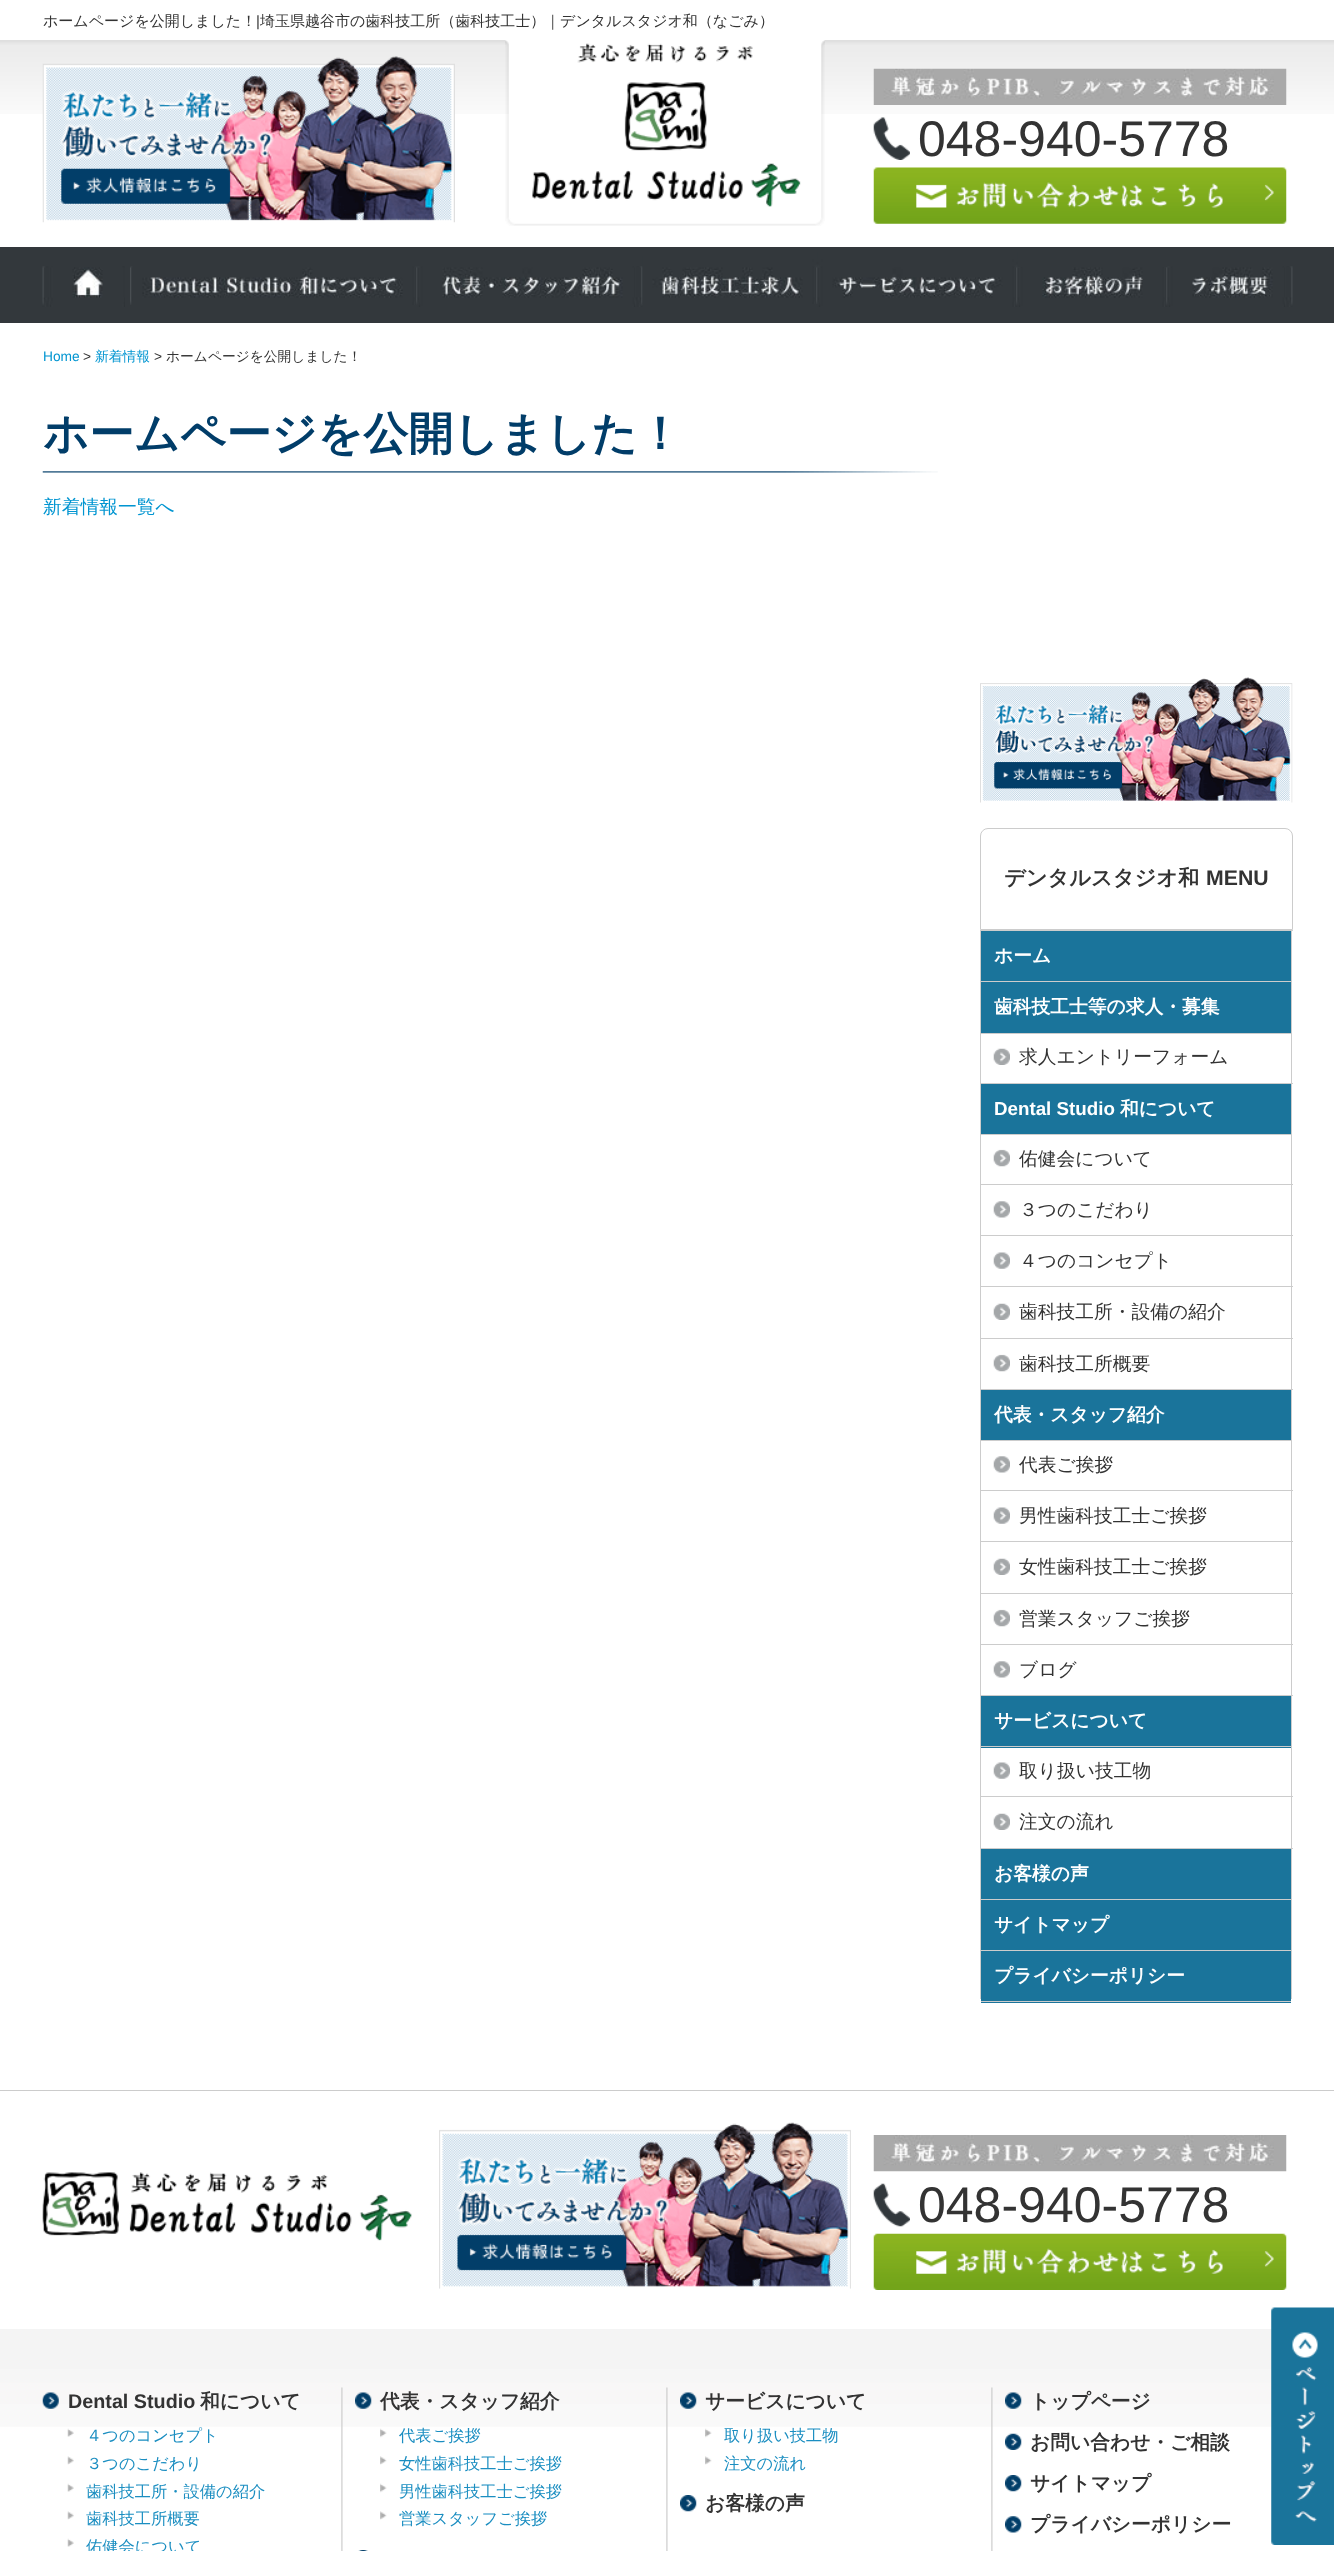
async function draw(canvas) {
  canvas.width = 1334
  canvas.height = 2551
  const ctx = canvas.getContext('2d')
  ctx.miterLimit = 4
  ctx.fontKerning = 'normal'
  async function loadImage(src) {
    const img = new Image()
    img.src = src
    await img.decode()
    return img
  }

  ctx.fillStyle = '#fff'
  ctx.fillRect(0, 0, 1334, 2551)
  ctx.drawImage(await loadImage('image0.png'), 0, 40, 1334, 74)
  ctx.font = '500 15px WenQuanYi Zen Hei'
  ctx.fillStyle = '#333'
  ctx.fillText('ホームページを公開しました！', 43, 26)
  ctx.font = '15px Liberation Sans'
  ctx.fillText('|', 256, 26)
  ctx.font = '500 15px WenQuanYi Zen Hei'
  ctx.fillText('埼玉県越谷市の歯科技工所（歯科技工士）｜デンタルスタジオ和（なごみ）', 260, 26)
  ctx.drawImage(await loadImage('image1.png'), 42, 56, 413, 167)
  ctx.drawImage(await loadImage('image2.png'), 505, 40, 320, 186)
  ctx.drawImage(await loadImage('image3.png'), 873, 68, 414, 37)
  ctx.drawImage(await loadImage('image4.png'), 873, 117, 37, 43)
  ctx.font = '50px Liberation Sans'
  ctx.fillText('048-940-5778', 918, 156)
  ctx.drawImage(await loadImage('image5.png'), 873, 167, 414, 57)
  ctx.fillStyle = '#33383c'
  ctx.fillRect(0, 247, 1334, 76)
  ctx.drawImage(await loadImage('image6.png'), 42, 266, 83, 41)
  ctx.drawImage(await loadImage('image7.png'), 130, 266, 288, 39)
  ctx.drawImage(await loadImage('image8.png'), 417, 266, 226, 41)
  ctx.drawImage(await loadImage('image9.png'), 642, 256, 176, 48)
  ctx.drawImage(await loadImage('image10.png'), 817, 252, 201, 55)
  ctx.drawImage(await loadImage('image11.png'), 1017, 267, 151, 40)
  ctx.drawImage(await loadImage('image12.png'), 1167, 266, 126, 41)
  ctx.font = '13.75px Liberation Sans'
  ctx.fillStyle = '#0195d1'
  ctx.fillText('Home', 43, 361)
  ctx.fillStyle = '#333'
  ctx.fillText('>', 83, 361)
  ctx.font = '500 13.75px WenQuanYi Zen Hei'
  ctx.fillStyle = '#0195d1'
  ctx.fillText('新着情報', 95, 361)
  ctx.font = '13.75px Liberation Sans'
  ctx.fillStyle = '#333'
  ctx.fillText('>', 154, 361)
  ctx.font = '500 13.75px WenQuanYi Zen Hei'
  ctx.fillText('ホームページを公開しました！', 166, 361)
  ctx.drawImage(await loadImage('image13.png'), 42, 471, 896, 2)
  ctx.font = 'bold 45px WenQuanYi Zen Hei'
  ctx.fillStyle = '#013d69'
  ctx.fillText('ホームページを公開しました！', 43, 449)
  ctx.font = '500 18.75px WenQuanYi Zen Hei'
  ctx.fillStyle = '#0195d1'
  ctx.fillText('新着情報一覧へ', 43, 513)
  ctx.drawImage(await loadImage('image14.png'), 980, 677, 313, 126)
  ctx.beginPath()
  ctx.roundRect(980.5, 828.5, 312, 101, [7.5, 7.5, 0, 0])
  ctx.strokeStyle = '#ccc'
  ctx.stroke()
  ctx.font = 'bold 21.25px WenQuanYi Zen Hei'
  ctx.fillStyle = '#333'
  ctx.fillText('デンタルスタジオ和', 1004, 885)
  ctx.font = 'bold 21.25px Liberation Sans'
  ctx.fillText('MENU', 1206, 885)
  ctx.fillStyle = '#ccc'
  ctx.fillRect(980, 930, 313, 1)
  ctx.fillRect(1291, 930, 1, 1069)
  ctx.fillRect(980, 930, 1, 1069)
  ctx.fillStyle = '#1a749b'
  ctx.fillRect(981, 931, 310, 102)
  ctx.fillStyle = '#ccc'
  ctx.fillRect(981, 981, 310, 1)
  ctx.font = 'bold 18.75px WenQuanYi Zen Hei'
  ctx.fillStyle = '#fff'
  ctx.fillText('ホーム', 994, 962)
  ctx.fillStyle = '#ccc'
  ctx.fillRect(981, 1033, 310, 1)
  ctx.fillStyle = '#fff'
  ctx.fillText('歯科技工士等の求人・募集', 994, 1013)
  ctx.drawImage(await loadImage('image15.png'), 993, 1048, 17, 17)
  ctx.fillStyle = '#ccc'
  ctx.fillRect(981, 1083, 312, 1)
  ctx.font = '500 18.75px WenQuanYi Zen Hei'
  ctx.fillStyle = '#333'
  ctx.fillText('求人エントリーフォーム', 1019, 1063)
  ctx.fillStyle = '#1a749b'
  ctx.fillRect(981, 1084, 310, 50)
  ctx.fillStyle = '#ccc'
  ctx.fillRect(981, 1134, 310, 1)
  ctx.font = 'bold 18.75px Liberation Sans'
  ctx.fillStyle = '#fff'
  ctx.fillText('Dental Studio', 994, 1115)
  ctx.font = 'bold 18.75px WenQuanYi Zen Hei'
  ctx.fillText('和について', 1120, 1115)
  ctx.drawImage(await loadImage('image16.png'), 993, 1149, 17, 18)
  ctx.fillStyle = '#ccc'
  ctx.fillRect(981, 1184, 312, 1)
  ctx.font = '500 18.75px WenQuanYi Zen Hei'
  ctx.fillStyle = '#333'
  ctx.fillText('佑健会について', 1019, 1165)
  ctx.drawImage(await loadImage('image17.png'), 993, 1201, 17, 17)
  ctx.fillStyle = '#ccc'
  ctx.fillRect(981, 1235, 312, 1)
  ctx.fillStyle = '#333'
  ctx.fillText('３つのこだわり', 1019, 1216)
  ctx.drawImage(await loadImage('image18.png'), 993, 1252, 17, 17)
  ctx.fillStyle = '#ccc'
  ctx.fillRect(981, 1286, 312, 1)
  ctx.fillStyle = '#333'
  ctx.fillText('４つのコンセプト', 1019, 1267)
  ctx.drawImage(await loadImage('image15.png'), 993, 1303, 17, 17)
  ctx.fillStyle = '#ccc'
  ctx.fillRect(981, 1338, 312, 1)
  ctx.fillStyle = '#333'
  ctx.fillText('歯科技工所・設備の紹介', 1019, 1318)
  ctx.drawImage(await loadImage('image16.png'), 993, 1354, 17, 18)
  ctx.fillStyle = '#ccc'
  ctx.fillRect(981, 1389, 312, 1)
  ctx.fillStyle = '#333'
  ctx.fillText('歯科技工所概要', 1019, 1370)
  ctx.fillStyle = '#1a749b'
  ctx.fillRect(981, 1390, 310, 50)
  ctx.fillStyle = '#ccc'
  ctx.fillRect(981, 1440, 310, 1)
  ctx.font = 'bold 18.75px WenQuanYi Zen Hei'
  ctx.fillStyle = '#fff'
  ctx.fillText('代表・スタッフ紹介', 994, 1421)
  ctx.drawImage(await loadImage('image17.png'), 993, 1456, 17, 17)
  ctx.fillStyle = '#ccc'
  ctx.fillRect(981, 1490, 312, 1)
  ctx.font = '500 18.75px WenQuanYi Zen Hei'
  ctx.fillStyle = '#333'
  ctx.fillText('代表ご挨拶', 1019, 1471)
  ctx.drawImage(await loadImage('image18.png'), 993, 1507, 17, 17)
  ctx.fillStyle = '#ccc'
  ctx.fillRect(981, 1541, 312, 1)
  ctx.fillStyle = '#333'
  ctx.fillText('男性歯科技工士ご挨拶', 1019, 1522)
  ctx.drawImage(await loadImage('image19.png'), 993, 1558, 17, 17)
  ctx.fillStyle = '#ccc'
  ctx.fillRect(981, 1593, 312, 1)
  ctx.fillStyle = '#333'
  ctx.fillText('女性歯科技工士ご挨拶', 1019, 1573)
  ctx.drawImage(await loadImage('image16.png'), 993, 1609, 17, 18)
  ctx.fillStyle = '#ccc'
  ctx.fillRect(981, 1644, 312, 1)
  ctx.fillStyle = '#333'
  ctx.fillText('営業スタッフご挨拶', 1019, 1625)
  ctx.drawImage(await loadImage('image17.png'), 993, 1661, 17, 17)
  ctx.fillStyle = '#ccc'
  ctx.fillRect(981, 1695, 312, 1)
  ctx.fillStyle = '#333'
  ctx.fillText('ブログ', 1019, 1676)
  ctx.fillStyle = '#1a749b'
  ctx.fillRect(981, 1696, 310, 52)
  ctx.fillStyle = '#ccc'
  ctx.fillRect(981, 1746, 310, 1)
  ctx.font = 'bold 18.75px WenQuanYi Zen Hei'
  ctx.fillStyle = '#fff'
  ctx.fillText('サービスについて', 994, 1727)
  ctx.drawImage(await loadImage('image18.png'), 993, 1762, 17, 17)
  ctx.fillStyle = '#ccc'
  ctx.fillRect(981, 1796, 312, 1)
  ctx.font = '500 18.75px WenQuanYi Zen Hei'
  ctx.fillStyle = '#333'
  ctx.fillText('取り扱い技工物', 1019, 1777)
  ctx.drawImage(await loadImage('image15.png'), 993, 1813, 17, 17)
  ctx.fillStyle = '#ccc'
  ctx.fillRect(981, 1848, 312, 1)
  ctx.fillStyle = '#333'
  ctx.fillText('注文の流れ', 1019, 1828)
  ctx.fillStyle = '#1a749b'
  ctx.fillRect(981, 1849, 310, 50)
  ctx.fillStyle = '#ccc'
  ctx.fillRect(981, 1899, 310, 1)
  ctx.font = 'bold 18.75px WenQuanYi Zen Hei'
  ctx.fillStyle = '#fff'
  ctx.fillText('お客様の声', 994, 1880)
  ctx.fillStyle = '#1a749b'
  ctx.fillRect(981, 1900, 310, 50)
  ctx.fillStyle = '#ccc'
  ctx.fillRect(981, 1950, 310, 1)
  ctx.fillStyle = '#fff'
  ctx.fillText('サイトマップ', 994, 1931)
  ctx.fillStyle = '#1a749b'
  ctx.fillRect(981, 1951, 310, 52)
  ctx.fillStyle = '#ccc'
  ctx.fillRect(981, 2001, 310, 1)
  ctx.fillStyle = '#fff'
  ctx.fillText('プライバシーポリシー', 994, 1982)
  ctx.drawImage(await loadImage('image20.png'), 0, 2329, 1272, 98)
  ctx.fillStyle = '#ccc'
  ctx.fillRect(0, 2090, 1334, 1)
  ctx.drawImage(await loadImage('image21.png'), 42, 2172, 370, 69)
  ctx.drawImage(await loadImage('image22.png'), 439, 2122, 412, 167)
  ctx.drawImage(await loadImage('image23.png'), 873, 2135, 414, 37)
  ctx.drawImage(await loadImage('image24.png'), 873, 2183, 37, 44)
  ctx.font = '50px Liberation Sans'
  ctx.fillStyle = '#333'
  ctx.fillText('048-940-5778', 918, 2222)
  ctx.drawImage(await loadImage('image25.png'), 873, 2233, 414, 57)
  ctx.drawImage(await loadImage('image26.png'), 341, 2387, 652, 164)
  ctx.drawImage(await loadImage('image27.png'), 42, 2392, 17, 17)
  ctx.font = 'bold 19.75px Liberation Sans'
  ctx.fillText('Dental Studio', 68, 2408)
  ctx.font = 'bold 19.75px WenQuanYi Zen Hei'
  ctx.fillText('和について', 200, 2408)
  ctx.drawImage(await loadImage('image28.png'), 67, 2428, 7, 9)
  ctx.font = '500 16.25px WenQuanYi Zen Hei'
  ctx.fillStyle = '#1b8ec1'
  ctx.fillText('４つのコンセプト', 86, 2441)
  ctx.drawImage(await loadImage('image29.png'), 67, 2456, 7, 9)
  ctx.fillText('３つのこだわり', 86, 2469)
  ctx.drawImage(await loadImage('image28.png'), 67, 2483, 7, 9)
  ctx.fillText('歯科技工所・設備の紹介', 86, 2497)
  ctx.drawImage(await loadImage('image29.png'), 67, 2511, 7, 9)
  ctx.fillText('歯科技工所概要', 86, 2524)
  ctx.drawImage(await loadImage('image28.png'), 67, 2538, 7, 9)
  ctx.fillText('佑健会について', 86, 2552)
  ctx.drawImage(await loadImage('image30.png'), 355, 2392, 17, 17)
  ctx.font = 'bold 19.75px WenQuanYi Zen Hei'
  ctx.fillStyle = '#333'
  ctx.fillText('代表・スタッフ紹介', 380, 2408)
  ctx.drawImage(await loadImage('image31.png'), 380, 2428, 7, 10)
  ctx.font = '500 16.25px WenQuanYi Zen Hei'
  ctx.fillStyle = '#1b8ec1'
  ctx.fillText('代表ご挨拶', 399, 2441)
  ctx.drawImage(await loadImage('image32.png'), 380, 2456, 7, 9)
  ctx.fillText('女性歯科技工士ご挨拶', 399, 2469)
  ctx.drawImage(await loadImage('image31.png'), 380, 2483, 7, 10)
  ctx.fillText('男性歯科技工士ご挨拶', 399, 2497)
  ctx.drawImage(await loadImage('image32.png'), 380, 2511, 7, 9)
  ctx.fillText('営業スタッフご挨拶', 399, 2524)
  ctx.drawImage(await loadImage('image33.png'), 358, 2550, 10, 1)
  ctx.drawImage(await loadImage('image34.png'), 680, 2392, 17, 17)
  ctx.font = 'bold 19.75px WenQuanYi Zen Hei'
  ctx.fillStyle = '#333'
  ctx.fillText('サービスについて', 705, 2408)
  ctx.drawImage(await loadImage('image35.png'), 705, 2428, 7, 10)
  ctx.font = '500 16.25px WenQuanYi Zen Hei'
  ctx.fillStyle = '#1b8ec1'
  ctx.fillText('取り扱い技工物', 724, 2441)
  ctx.drawImage(await loadImage('image36.png'), 705, 2456, 7, 9)
  ctx.fillText('注文の流れ', 724, 2469)
  ctx.drawImage(await loadImage('image37.png'), 680, 2495, 17, 17)
  ctx.font = 'bold 19.75px WenQuanYi Zen Hei'
  ctx.fillStyle = '#333'
  ctx.fillText('お客様の声', 705, 2510)
  ctx.drawImage(await loadImage('image34.png'), 1005, 2392, 17, 17)
  ctx.fillText('トップページ', 1030, 2408)
  ctx.drawImage(await loadImage('image38.png'), 1005, 2433, 17, 17)
  ctx.fillText('お問い合わせ・ご相談', 1030, 2449)
  ctx.drawImage(await loadImage('image37.png'), 1005, 2475, 17, 17)
  ctx.fillText('サイトマップ', 1030, 2490)
  ctx.drawImage(await loadImage('image39.png'), 1005, 2516, 17, 17)
  ctx.fillText('プライバシーポリシー', 1030, 2531)
  ctx.drawImage(await loadImage('image40.png'), 1271, 2307, 63, 238)
}

draw(document.querySelector('canvas'))
